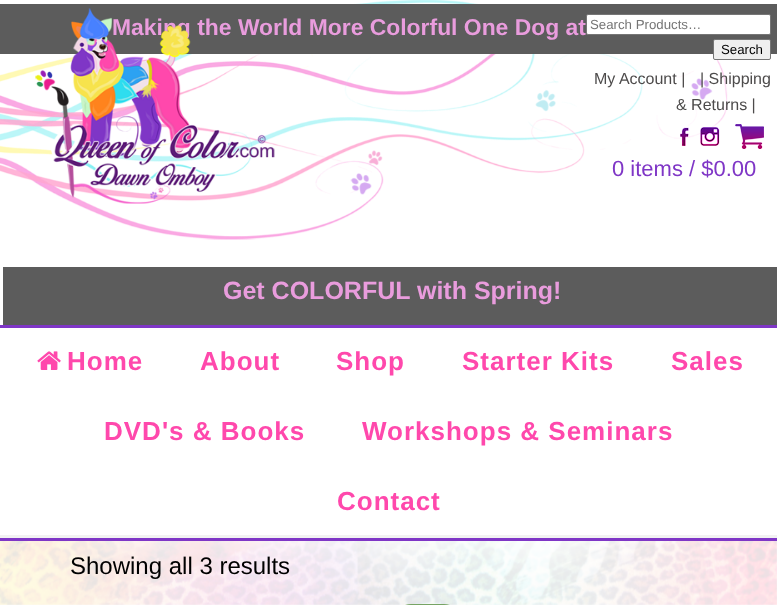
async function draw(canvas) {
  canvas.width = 777
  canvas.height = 605
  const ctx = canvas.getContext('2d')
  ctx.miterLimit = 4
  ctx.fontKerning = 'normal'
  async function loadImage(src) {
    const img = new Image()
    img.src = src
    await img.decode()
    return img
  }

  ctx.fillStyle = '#fff'
  ctx.fillRect(0, 0, 777, 605)
  ctx.drawImage(await loadImage('image0.png'), 0, 0, 777, 605)
  ctx.fillStyle = '#fffffffc'
  ctx.fillRect(0, 0, 777, 325)
  ctx.drawImage(await loadImage('image1.png'), 0, 0, 728, 240)
  ctx.fillStyle = '#5c5c5c'
  ctx.fillRect(0, 4, 777, 50)
  ctx.font = 'bold 22.9px Liberation Sans'
  ctx.fillStyle = '#e99cdd'
  ctx.fillText('Making the World More Colorful One Dog at', 112, 35)
  ctx.drawImage(await loadImage('image2.png'), 35, 8, 240, 196)
  ctx.fillStyle = '#fff'
  ctx.beginPath()
  ctx.roundRect(586.5, 14.5, 184, 20, 1.5)
  ctx.fill()
  ctx.strokeStyle = '#767676'
  ctx.stroke()
  ctx.font = '13.25px Liberation Sans'
  ctx.fillStyle = '#757575'
  ctx.fillText('Search Products…', 590, 29)
  ctx.fillStyle = '#efefef'
  ctx.beginPath()
  ctx.roundRect(713.5, 39.5, 57, 20, 1.5)
  ctx.fill()
  ctx.stroke()
  ctx.fillStyle = '#000'
  ctx.fillText('Search', 721, 54)
  ctx.font = '16px Liberation Sans'
  ctx.fillStyle = '#4d4b4b'
  ctx.fillText('My Account |', 594, 84)
  ctx.fillText('| Shipping', 700, 84)
  ctx.fillText('& Returns |', 676, 110)
  ctx.drawImage(await loadImage('image3.png'), 680, 124, 84, 25)
  ctx.font = '22px Liberation Sans'
  ctx.fillStyle = '#7f36c6'
  ctx.fillText('0 items / $0.00', 612, 176)
  ctx.fillStyle = '#5c5c5c'
  ctx.fillRect(3, 267, 774, 58)
  ctx.font = 'bold 25px Liberation Sans'
  ctx.fillStyle = '#e99cdd'
  ctx.fillText('Get COLORFUL with Spring!', 223, 299)
  ctx.fillStyle = '#fff'
  ctx.fillRect(0, 328, 777, 207)
  ctx.fillStyle = '#7f36c6'
  ctx.fillRect(0, 325, 777, 3)
  ctx.fillRect(0, 538, 777, 3)
  ctx.fillStyle = '#f2f2f2'
  ctx.fillRect(0, 535, 777, 3)
  ctx.drawImage(await loadImage('image4.png'), 37, 351, 24, 19)
  ctx.letterSpacing = '1px'
  ctx.font = 'bold 26px Liberation Sans'
  ctx.fillStyle = '#ff48ac'
  ctx.fillText('Home', 67, 370)
  ctx.fillText('About', 200, 370)
  ctx.fillText('Shop', 336, 370)
  ctx.fillText('Starter Kits', 462, 370)
  ctx.fillText('Sales', 671, 370)
  ctx.fillText('DVD\'s & Books', 104, 440)
  ctx.fillText('Workshops & Seminars', 362, 440)
  ctx.fillText('Contact', 337, 510)
  ctx.letterSpacing = '0px'
  ctx.font = '24px Liberation Sans'
  ctx.fillStyle = '#000'
  ctx.fillText('Showing all 3 results', 70, 574)
  ctx.fillStyle = '#77a464'
  ctx.beginPath()
  ctx.roundRect(393, 604, 69, 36, 34.5)
  ctx.fill()
}

draw(document.querySelector('canvas'))
